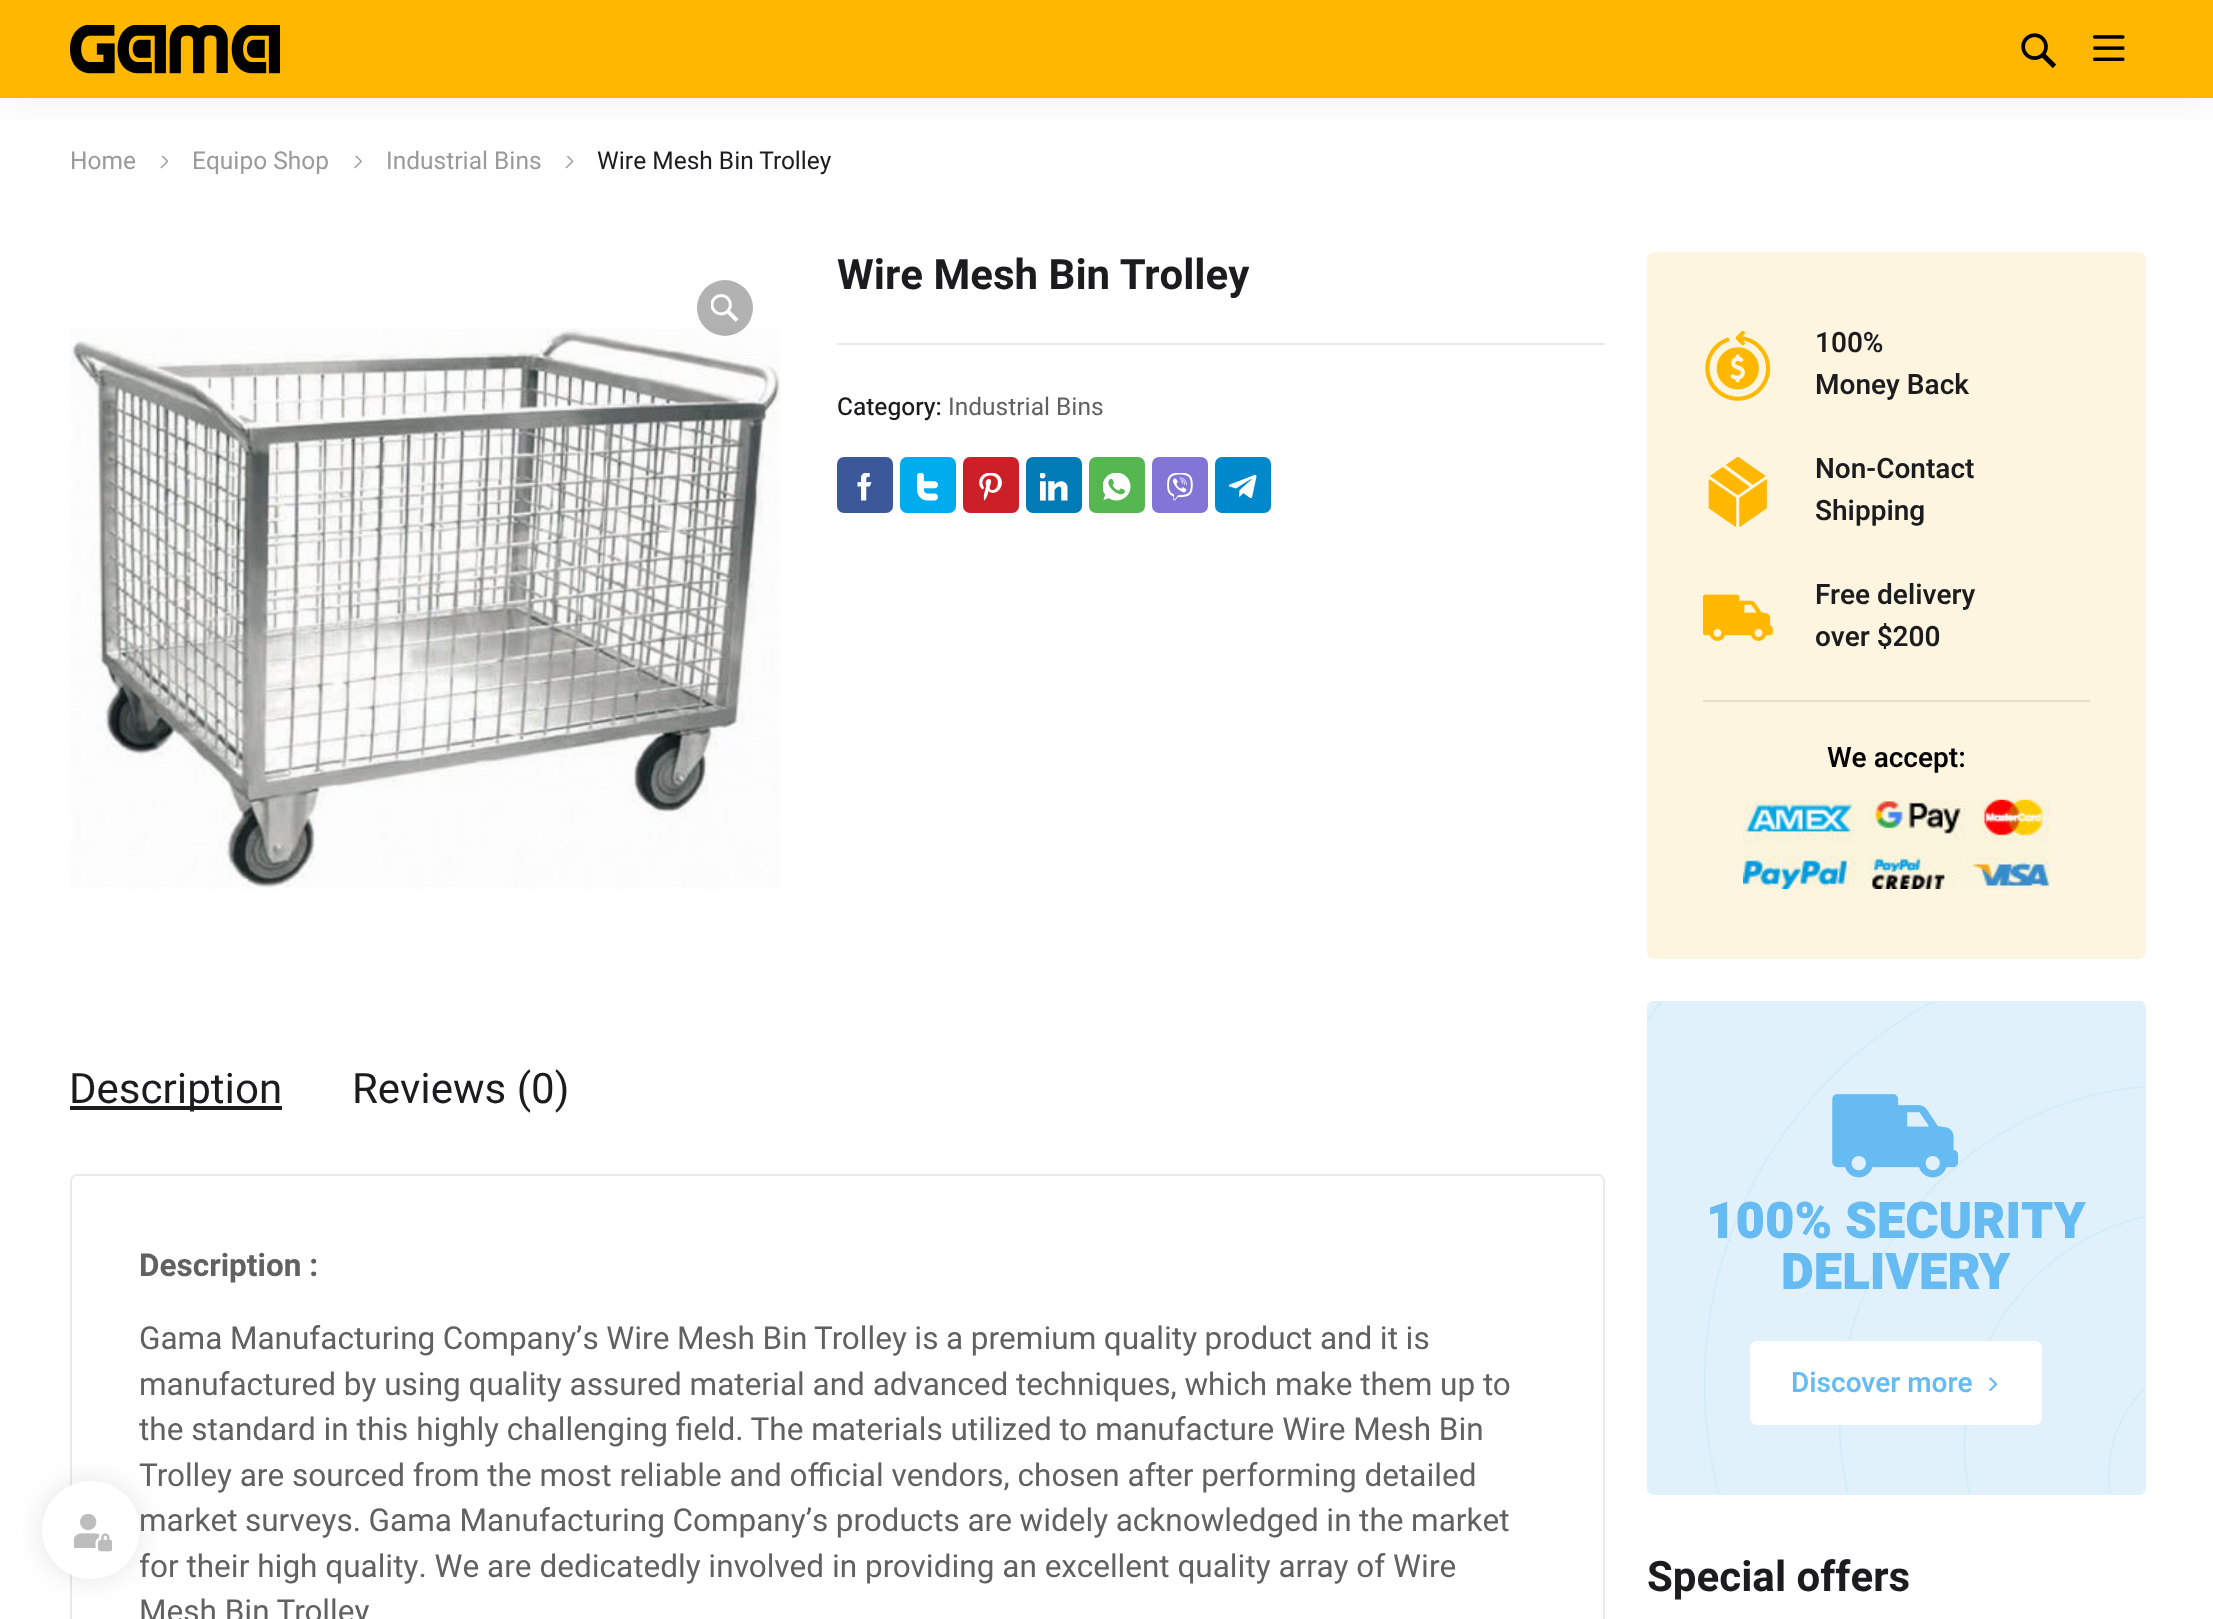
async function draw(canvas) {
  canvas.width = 2213
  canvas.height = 1619
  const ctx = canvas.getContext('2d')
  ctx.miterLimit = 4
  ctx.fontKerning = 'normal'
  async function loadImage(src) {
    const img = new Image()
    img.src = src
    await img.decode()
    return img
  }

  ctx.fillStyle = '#fff'
  ctx.fillRect(0, 0, 2213, 1619)
  ctx.fillStyle = '#0000000d'
  ctx.filter = 'blur(17.5px)'
  ctx.beginPath()
  ctx.rect(0, 4, 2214, 98)
  ctx.fill()
  ctx.filter = 'none'
  ctx.fillStyle = '#ffb700'
  ctx.fillRect(0, 0, 2213, 98)
  ctx.drawImage(await loadImage('image0.png'), 70, 25, 210, 49)
  ctx.drawImage(await loadImage('image1.png'), 2021, 33, 35, 35)
  ctx.drawImage(await loadImage('image2.png'), 2093, 35, 32, 26)
  ctx.beginPath()
  ctx.roundRect(71, 1175, 1533, 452, 6)
  ctx.strokeStyle = '#eaeaea'
  ctx.lineWidth = 2
  ctx.stroke()
  ctx.fillStyle = '#0000001a'
  ctx.filter = 'blur(14px)'
  ctx.beginPath()
  ctx.roundRect(42, 1481, 98, 98, 49)
  ctx.fill()
  ctx.filter = 'none'
  ctx.font = '31.5px Heebo'
  ctx.fillStyle = '#616161'
  ctx.fillText('Trolley are sourced from the most reliable and official vendors, chosen after performing detailed', 139, 1486)
  ctx.fillStyle = '#fff'
  ctx.beginPath()
  ctx.arc(91, 1530, 49, 0, 2 * Math.PI)
  ctx.fill()
  ctx.drawImage(await loadImage('image3.png'), 74, 1514, 38, 38)
  ctx.font = '24.5px Heebo'
  ctx.fillStyle = '#9a9a9a'
  ctx.fillText('Home', 70, 169)
  ctx.drawImage(await loadImage('image4.png'), 160, 156, 9, 13)
  ctx.fillText('Equipo Shop', 192, 169)
  ctx.drawImage(await loadImage('image5.png'), 354, 156, 8, 13)
  ctx.fillText('Industrial Bins', 386, 169)
  ctx.drawImage(await loadImage('image6.png'), 565, 156, 9, 13)
  ctx.fillStyle = '#1c1c1e'
  ctx.fillText('Wire Mesh Bin Trolley', 597, 169)
  ctx.drawImage(await loadImage('image8.png'), 70, 328, 710, 562)
  ctx.fillStyle = '#0000004d'
  ctx.beginPath()
  ctx.arc(725, 308, 28, 0, 2 * Math.PI)
  ctx.fill()
  ctx.drawImage(await loadImage('image7.png'), 711, 294, 28, 28)
  ctx.font = 'bold 42px Heebo'
  ctx.fillStyle = '#1c1c1e'
  ctx.fillText('Wire Mesh Bin Trolley', 837, 289)
  ctx.fillStyle = '#eaeaea'
  ctx.fillRect(837, 343, 768, 2)
  ctx.font = '500 24.5px Heebo'
  ctx.fillStyle = '#1c1c1e'
  ctx.fillText('Category:', 837, 415)
  ctx.font = '24.5px Heebo'
  ctx.fillStyle = '#616161'
  ctx.fillText('Industrial Bins', 948, 415)
  ctx.fillStyle = '#3b5998'
  ctx.beginPath()
  ctx.roundRect(837, 457, 56, 56, 7)
  ctx.fill()
  ctx.drawImage(await loadImage('image9.png'), 857, 473, 15, 28)
  ctx.fillStyle = '#00aced'
  ctx.beginPath()
  ctx.roundRect(900, 457, 56, 56, 7)
  ctx.fill()
  ctx.drawImage(await loadImage('image10.png'), 917, 473, 21, 28)
  ctx.fillStyle = '#cb2027'
  ctx.beginPath()
  ctx.roundRect(963, 457, 56, 56, 7)
  ctx.fill()
  ctx.drawImage(await loadImage('image11.png'), 979, 473, 23, 28)
  ctx.fillStyle = '#007bb6'
  ctx.beginPath()
  ctx.roundRect(1026, 457, 56, 56, 7)
  ctx.fill()
  ctx.drawImage(await loadImage('image12.png'), 1040, 473, 28, 28)
  ctx.fillStyle = '#55b750'
  ctx.beginPath()
  ctx.roundRect(1089, 457, 56, 56, 7)
  ctx.fill()
  ctx.drawImage(await loadImage('image13.png'), 1103, 473, 28, 28)
  ctx.fillStyle = '#8176d6'
  ctx.beginPath()
  ctx.roundRect(1152, 457, 56, 56, 7)
  ctx.fill()
  ctx.drawImage(await loadImage('image14.png'), 1167, 473, 26, 28)
  ctx.fillStyle = '#08c'
  ctx.beginPath()
  ctx.roundRect(1215, 457, 56, 56, 7)
  ctx.fill()
  ctx.drawImage(await loadImage('image15.png'), 1229, 474, 28, 25)
  ctx.fillStyle = '#1c1c1e'
  ctx.fillRect(70, 1106, 212, 4)
  ctx.font = '42px Heebo'
  ctx.fillText('Description', 69, 1103)
  ctx.fillText('Reviews (0)', 352, 1103)
  ctx.font = 'bold 31.5px Heebo'
  ctx.fillStyle = '#616161'
  ctx.fillText('Description :', 139, 1276)
  ctx.wordSpacing = '-0.25px'
  ctx.font = '31.5px Heebo'
  ctx.fillText('Gama Manufacturing Company’s Wire Mesh Bin Trolley is a premium quality product and it is', 139, 1349)
  ctx.wordSpacing = '0px'
  ctx.fillText('manufactured by using quality assured material and advanced techniques, which make them up to', 139, 1395)
  ctx.fillText('the standard in this highly challenging field. The materials utilized to manufacture Wire Mesh Bin', 139, 1440)
  ctx.wordSpacing = '-0.25px'
  ctx.fillText('market surveys. Gama Manufacturing Company’s products are widely acknowledged in the market', 139, 1531)
  ctx.wordSpacing = '0px'
  ctx.fillText('for their high quality. We are dedicatedly involved in providing an excellent quality array of Wire', 139, 1577)
  ctx.fillText('Mesh Bin Trolley', 139, 1622)
  ctx.fillStyle = '#fdf5e0'
  ctx.beginPath()
  ctx.roundRect(1647, 252, 499, 707, 7)
  ctx.fill()
  ctx.drawImage(await loadImage('image16.png'), 1705, 331, 66, 70)
  ctx.font = '600 28px Heebo'
  ctx.fillStyle = '#1c1c1e'
  ctx.fillText('100%', 1815, 352)
  ctx.fillText('Money Back', 1815, 394)
  ctx.drawImage(await loadImage('image17.png'), 1708, 457, 59, 70)
  ctx.fillText('Non-Contact', 1815, 478)
  ctx.fillText('Shipping', 1815, 520)
  ctx.drawImage(await loadImage('image18.png'), 1703, 594, 70, 47)
  ctx.fillText('Free delivery', 1815, 604)
  ctx.fillText('over $200', 1815, 646)
  ctx.fillStyle = '#e4ddca'
  ctx.fillRect(1703, 700, 387, 2)
  ctx.fillStyle = '#000'
  ctx.fillText('We accept:', 1827, 767)
  ctx.drawImage(await loadImage('image19.png'), 1743, 799, 307, 90)
  ctx.fillStyle = '#e0f1fb'
  ctx.beginPath()
  ctx.roundRect(1647, 1001, 499, 494, 7)
  ctx.fill()
  ctx.drawImage(await loadImage('image20.png'), 1647, 1001, 499, 493)
  ctx.drawImage(await loadImage('image21.png'), 1832, 1094, 126, 84)
  ctx.font = '900 50.75px Heebo'
  ctx.fillStyle = '#66bbf2'
  ctx.fillText('100% SECURITY', 1706, 1238)
  ctx.fillText('DELIVERY', 1781, 1289)
  ctx.fillStyle = '#fff'
  ctx.beginPath()
  ctx.roundRect(1750, 1341, 292, 84, 7)
  ctx.fill()
  ctx.font = '600 28px Heebo'
  ctx.fillStyle = '#66bbf2'
  ctx.fillText('Discover more', 1791, 1392)
  ctx.drawImage(await loadImage('image22.png'), 1989, 1377, 9, 14)
  ctx.font = 'bold 42px Heebo'
  ctx.fillStyle = '#1c1c1e'
  ctx.fillText('Special offers', 1647, 1591)
}

draw(document.querySelector('canvas'))
